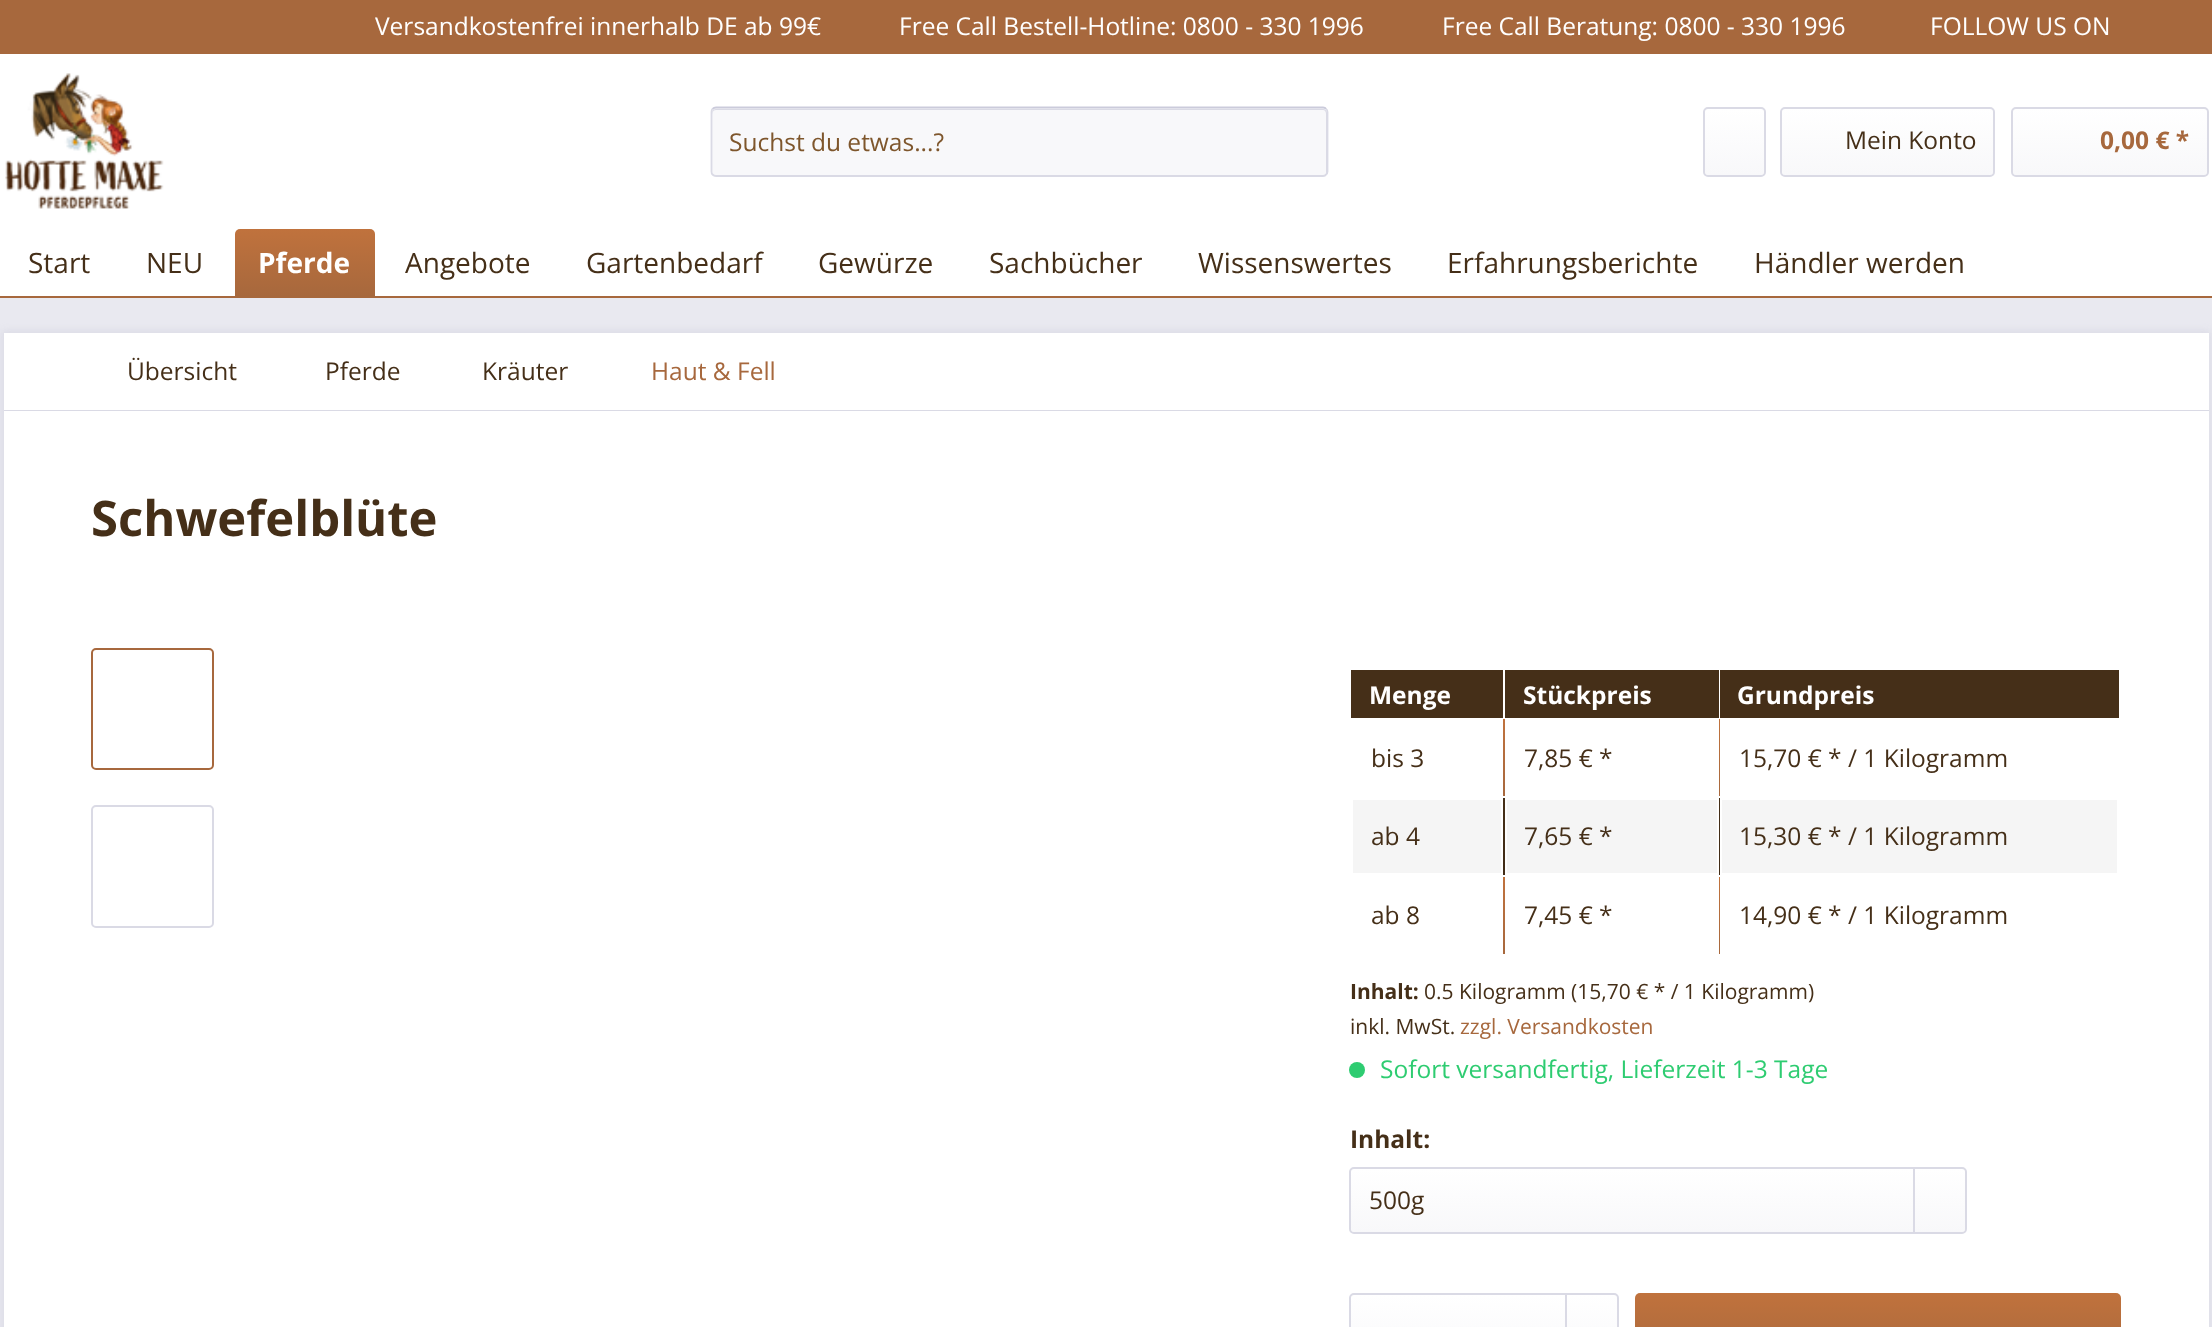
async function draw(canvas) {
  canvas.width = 2212
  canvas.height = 1327
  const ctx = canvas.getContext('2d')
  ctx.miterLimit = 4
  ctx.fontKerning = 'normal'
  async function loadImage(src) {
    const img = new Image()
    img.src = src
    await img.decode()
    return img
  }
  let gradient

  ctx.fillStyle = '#e9e9f0'
  ctx.fillRect(0, 0, 2212, 1327)
  ctx.fillStyle = '#fff'
  ctx.fillRect(0, 54, 2212, 242)
  ctx.fillStyle = '#a7683d'
  ctx.fillRect(0, 0, 2212, 54)
  ctx.font = '24.5px Open Sans'
  ctx.fillStyle = '#fff'
  ctx.fillText('Versandkostenfrei innerhalb DE ab 99€', 375, 35)
  ctx.fillText('Free Call Bestell-Hotline: 0800 - 330 1996', 899, 35)
  ctx.fillText('Free Call Beratung: 0800 - 330 1996', 1442, 35)
  ctx.fillText('FOLLOW US ON', 1930, 35)
  ctx.drawImage(await loadImage('image0.png'), 5, 73, 159, 136)
  ctx.fillStyle = '#f8f8fa'
  ctx.beginPath()
  ctx.roundRect(711, 107, 617, 70, 5)
  ctx.fill()
  ctx.fillStyle = '#dadae5'
  ctx.beginPath()
  ctx.moveTo(716, 110)
  ctx.lineTo(1323, 110)
  ctx.bezierCurveTo(1325, 110, 1326, 112, 1326, 114)
  ctx.lineTo(1326, 174)
  ctx.bezierCurveTo(1327, 173, 1327, 172, 1327, 171)
  ctx.lineTo(1327, 113)
  ctx.bezierCurveTo(1327, 111, 1325, 109, 1323, 109)
  ctx.lineTo(716, 109)
  ctx.bezierCurveTo(714, 109, 712, 111, 712, 113)
  ctx.lineTo(712, 114)
  ctx.bezierCurveTo(712, 112, 714, 110, 716, 110)
  ctx.closePath()
  ctx.fill()
  ctx.beginPath()
  ctx.moveTo(712.5, 109)
  ctx.bezierCurveTo(713.5, 108, 714.5, 107.5, 716, 107.5)
  ctx.lineTo(1323, 107.5)
  ctx.bezierCurveTo(1324, 107.5, 1325.5, 108, 1326, 109)
  ctx.strokeStyle = '#cbcbdb'
  ctx.lineWidth = 1.8
  ctx.stroke()
  ctx.beginPath()
  ctx.moveTo(1326, 109)
  ctx.bezierCurveTo(1327, 109.5, 1327.5, 111, 1327.5, 112)
  ctx.lineTo(1327.5, 171.5)
  ctx.bezierCurveTo(1327.5, 172.5, 1327, 174, 1326, 174.5)
  ctx.bezierCurveTo(1325.5, 175.5, 1324, 176, 1323, 176)
  ctx.lineTo(716, 176)
  ctx.bezierCurveTo(714.5, 176, 713.5, 175.5, 712.5, 174.5)
  ctx.bezierCurveTo(712, 174, 711.5, 172.5, 711.5, 171.5)
  ctx.lineTo(711.5, 112)
  ctx.bezierCurveTo(711.5, 111, 712, 109.5, 712.5, 109)
  ctx.strokeStyle = '#dadae5'
  ctx.stroke()
  ctx.fillStyle = '#7e562c'
  ctx.fillText('Suchst du etwas...?', 729, 151)
  gradient = ctx.createLinearGradient(1734, 109, 1734, 175)
  gradient.addColorStop(0, '#fff')
  gradient.addColorStop(1, '#f8f8fa')
  ctx.fillStyle = gradient
  ctx.beginPath()
  ctx.roundRect(1705, 109, 59, 66, 4)
  ctx.fill()
  ctx.beginPath()
  ctx.roundRect(1704, 108, 61, 68, 4)
  ctx.lineWidth = 2
  ctx.stroke()
  gradient = ctx.createLinearGradient(1887, 108, 1887, 175)
  gradient.addColorStop(0, '#fff')
  gradient.addColorStop(1, '#f8f8fa')
  ctx.fillStyle = gradient
  ctx.beginPath()
  ctx.roundRect(1782, 109, 211, 66, 4)
  ctx.fill()
  ctx.beginPath()
  ctx.roundRect(1781, 108, 213, 68, 4)
  ctx.stroke()
  ctx.fillStyle = '#452f18'
  ctx.fillText('Mein Konto', 1845, 149)
  gradient = ctx.createLinearGradient(2110, 108, 2110, 175)
  gradient.addColorStop(0, '#fff')
  gradient.addColorStop(1, '#f8f8fa')
  ctx.fillStyle = gradient
  ctx.beginPath()
  ctx.roundRect(2013, 109, 194, 66, 4)
  ctx.fill()
  ctx.beginPath()
  ctx.roundRect(2012, 108, 196, 68, 4)
  ctx.stroke()
  ctx.font = 'bold 24.5px Open Sans'
  ctx.fillStyle = '#a7683d'
  ctx.fillText('0,00 € *', 2100, 149)
  ctx.fillRect(0, 296, 2212, 2)
  ctx.font = '28px Open Sans'
  ctx.fillStyle = '#452f18'
  ctx.fillText('Start', 28, 273)
  ctx.fillText('NEU', 146, 273)
  gradient = ctx.createLinearGradient(305, 229, 305, 296)
  gradient.addColorStop(0, '#c0723d')
  gradient.addColorStop(1, '#a7683d')
  ctx.fillStyle = gradient
  ctx.beginPath()
  ctx.roundRect(235, 229, 140, 67, [5, 5, 0, 0])
  ctx.fill()
  ctx.font = 'bold 28px Open Sans'
  ctx.fillStyle = '#fff'
  ctx.fillText('Pferde', 258, 273)
  ctx.font = '28px Open Sans'
  ctx.fillStyle = '#452f18'
  ctx.fillText('Angebote', 405, 273)
  ctx.fillText('Gartenbedarf', 586, 273)
  ctx.fillText('Gewürze', 818, 273)
  ctx.fillText('Sachbücher', 989, 273)
  ctx.fillText('Wissenswertes', 1198, 273)
  ctx.fillText('Erfahrungsberichte', 1447, 273)
  ctx.fillText('Händler werden', 1754, 273)
  ctx.fillStyle = '#dadae5'
  ctx.filter = 'blur(3.5px)'
  ctx.beginPath()
  ctx.rect(2, 331, 2208, 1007)
  ctx.fill()
  ctx.filter = 'none'
  ctx.fillStyle = '#fff'
  ctx.fillRect(4, 333, 2205, 77)
  ctx.fillStyle = '#dadae5'
  ctx.fillRect(4, 410, 2205, 1)
  ctx.font = '24.5px Open Sans'
  ctx.fillStyle = '#452f18'
  ctx.fillText('Übersicht', 127, 380)
  ctx.fillText('Pferde', 325, 380)
  ctx.fillText('Kräuter', 482, 380)
  ctx.fillStyle = '#a7683d'
  ctx.fillText('Haut & Fell', 651, 380)
  ctx.fillStyle = '#fff'
  ctx.fillRect(4, 411, 2205, 916)
  ctx.font = 'bold 49px Open Sans'
  ctx.fillStyle = '#452f18'
  ctx.fillText('Schwefelblüte', 91, 536)
  ctx.beginPath()
  ctx.roundRect(92, 649, 121, 120, 4)
  ctx.strokeStyle = '#a7683d'
  ctx.stroke()
  ctx.beginPath()
  ctx.roundRect(92, 806, 121, 121, 4)
  ctx.strokeStyle = '#dadae5'
  ctx.stroke()
  ctx.fillRect(1351, 670, 152, 48)
  ctx.font = 'bold 24.5px Open Sans'
  ctx.fillStyle = '#fff'
  ctx.fillText('Menge', 1369, 704)
  ctx.fillStyle = '#452f18'
  ctx.fillRect(1505, 670, 214, 48)
  ctx.fillStyle = '#fff'
  ctx.fillText('Stückpreis', 1523, 704)
  ctx.fillStyle = '#452f18'
  ctx.fillRect(1720, 670, 399, 48)
  ctx.fillStyle = '#fff'
  ctx.fillText('Grundpreis', 1737, 704)
  gradient = ctx.createLinearGradient(1735, 719, 1735, 796)
  gradient.addColorStop(0, '#c0723d')
  gradient.addColorStop(1, '#a7683d')
  ctx.fillStyle = gradient
  ctx.fillRect(1503, 719, 217, 77)
  ctx.font = '24.5px Open Sans'
  ctx.fillStyle = '#452f18'
  ctx.fillText('bis 3', 1371, 767)
  ctx.fillStyle = '#fff'
  ctx.fillRect(1505, 719, 214, 77)
  ctx.fillStyle = '#452f18'
  ctx.fillText('7,85 € *', 1524, 767)
  ctx.fillText('15,70 € * / 1 Kilogramm', 1739, 767)
  gradient = ctx.createLinearGradient(1735, 798, 1735, 875)
  gradient.addColorStop(0, '#452f18')
  gradient.addColorStop(1, '#412c17')
  ctx.fillStyle = gradient
  ctx.fillRect(1503, 798, 217, 77)
  ctx.fillStyle = '#f5f5f5'
  ctx.fillRect(1353, 800, 148, 73)
  ctx.fillStyle = '#452f18'
  ctx.fillText('ab 4', 1371, 845)
  ctx.fillStyle = '#f5f5f5'
  ctx.beginPath()
  ctx.rect(1506, 799, 212, 75)
  ctx.fill()
  ctx.strokeStyle = '#fff'
  ctx.stroke()
  ctx.fillStyle = '#452f18'
  ctx.fillText('7,65 € *', 1524, 845)
  ctx.fillStyle = '#f5f5f5'
  ctx.fillRect(1722, 800, 395, 73)
  ctx.fillStyle = '#452f18'
  ctx.fillText('15,30 € * / 1 Kilogramm', 1739, 845)
  gradient = ctx.createLinearGradient(1735, 877, 1735, 954)
  gradient.addColorStop(0, '#c0723d')
  gradient.addColorStop(1, '#a7683d')
  ctx.fillStyle = gradient
  ctx.fillRect(1503, 877, 217, 77)
  ctx.fillStyle = '#452f18'
  ctx.fillText('ab 8', 1371, 924)
  ctx.fillStyle = '#fff'
  ctx.fillRect(1505, 877, 214, 77)
  ctx.fillStyle = '#452f18'
  ctx.fillText('7,45 € *', 1524, 924)
  ctx.fillText('14,90 € * / 1 Kilogramm', 1739, 924)
  ctx.font = 'bold 21px Open Sans'
  ctx.fillText('Inhalt:', 1350, 999)
  ctx.font = '21px Open Sans'
  ctx.fillText('0.5 Kilogramm (15,70 € * / 1 Kilogramm)', 1424, 999)
  ctx.fillText('inkl. MwSt.', 1350, 1034)
  ctx.fillStyle = '#a7683d'
  ctx.fillText('zzgl. Versandkosten', 1460, 1034)
  ctx.fillStyle = '#2ecc71'
  ctx.beginPath()
  ctx.arc(1357, 1070, 8, 0, 2 * Math.PI)
  ctx.fill()
  ctx.font = '24.5px Open Sans'
  ctx.fillText('Sofort versandfertig, Lieferzeit 1-3 Tage', 1380, 1078)
  ctx.font = 'bold 24.5px Open Sans'
  ctx.fillStyle = '#452f18'
  ctx.fillText('Inhalt:', 1350, 1148)
  gradient = ctx.createLinearGradient(1658, 1169, 1658, 1232)
  gradient.addColorStop(0, '#fff')
  gradient.addColorStop(1, '#f8f8fa')
  ctx.fillStyle = gradient
  ctx.beginPath()
  ctx.roundRect(1351, 1169, 614, 63, 4)
  ctx.fill()
  ctx.beginPath()
  ctx.roundRect(1350, 1168, 616, 65, 4)
  ctx.strokeStyle = '#dadae5'
  ctx.stroke()
  ctx.font = '24.5px Open Sans'
  ctx.fillStyle = '#452f18'
  ctx.fillText('500g', 1369, 1209)
  ctx.fillStyle = '#dadae5'
  ctx.fillRect(1913, 1169, 2, 63)
  gradient = ctx.createLinearGradient(1484, 1295, 1484, 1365)
  gradient.addColorStop(0, '#fff')
  gradient.addColorStop(1, '#f8f8fa')
  ctx.fillStyle = gradient
  ctx.beginPath()
  ctx.roundRect(1351, 1295, 266, 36, 4)
  ctx.fill()
  ctx.beginPath()
  ctx.roundRect(1350, 1294, 268, 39, 4)
  ctx.stroke()
  ctx.fillStyle = '#dadae5'
  ctx.fillRect(1565, 1295, 2, 32)
  gradient = ctx.createLinearGradient(1878, 1293, 1878, 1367)
  gradient.addColorStop(0, '#c0723d')
  gradient.addColorStop(1, '#a7683d')
  ctx.fillStyle = gradient
  ctx.beginPath()
  ctx.roundRect(1635, 1293, 486, 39, 5)
  ctx.fill()
}

draw(document.querySelector('canvas'))
